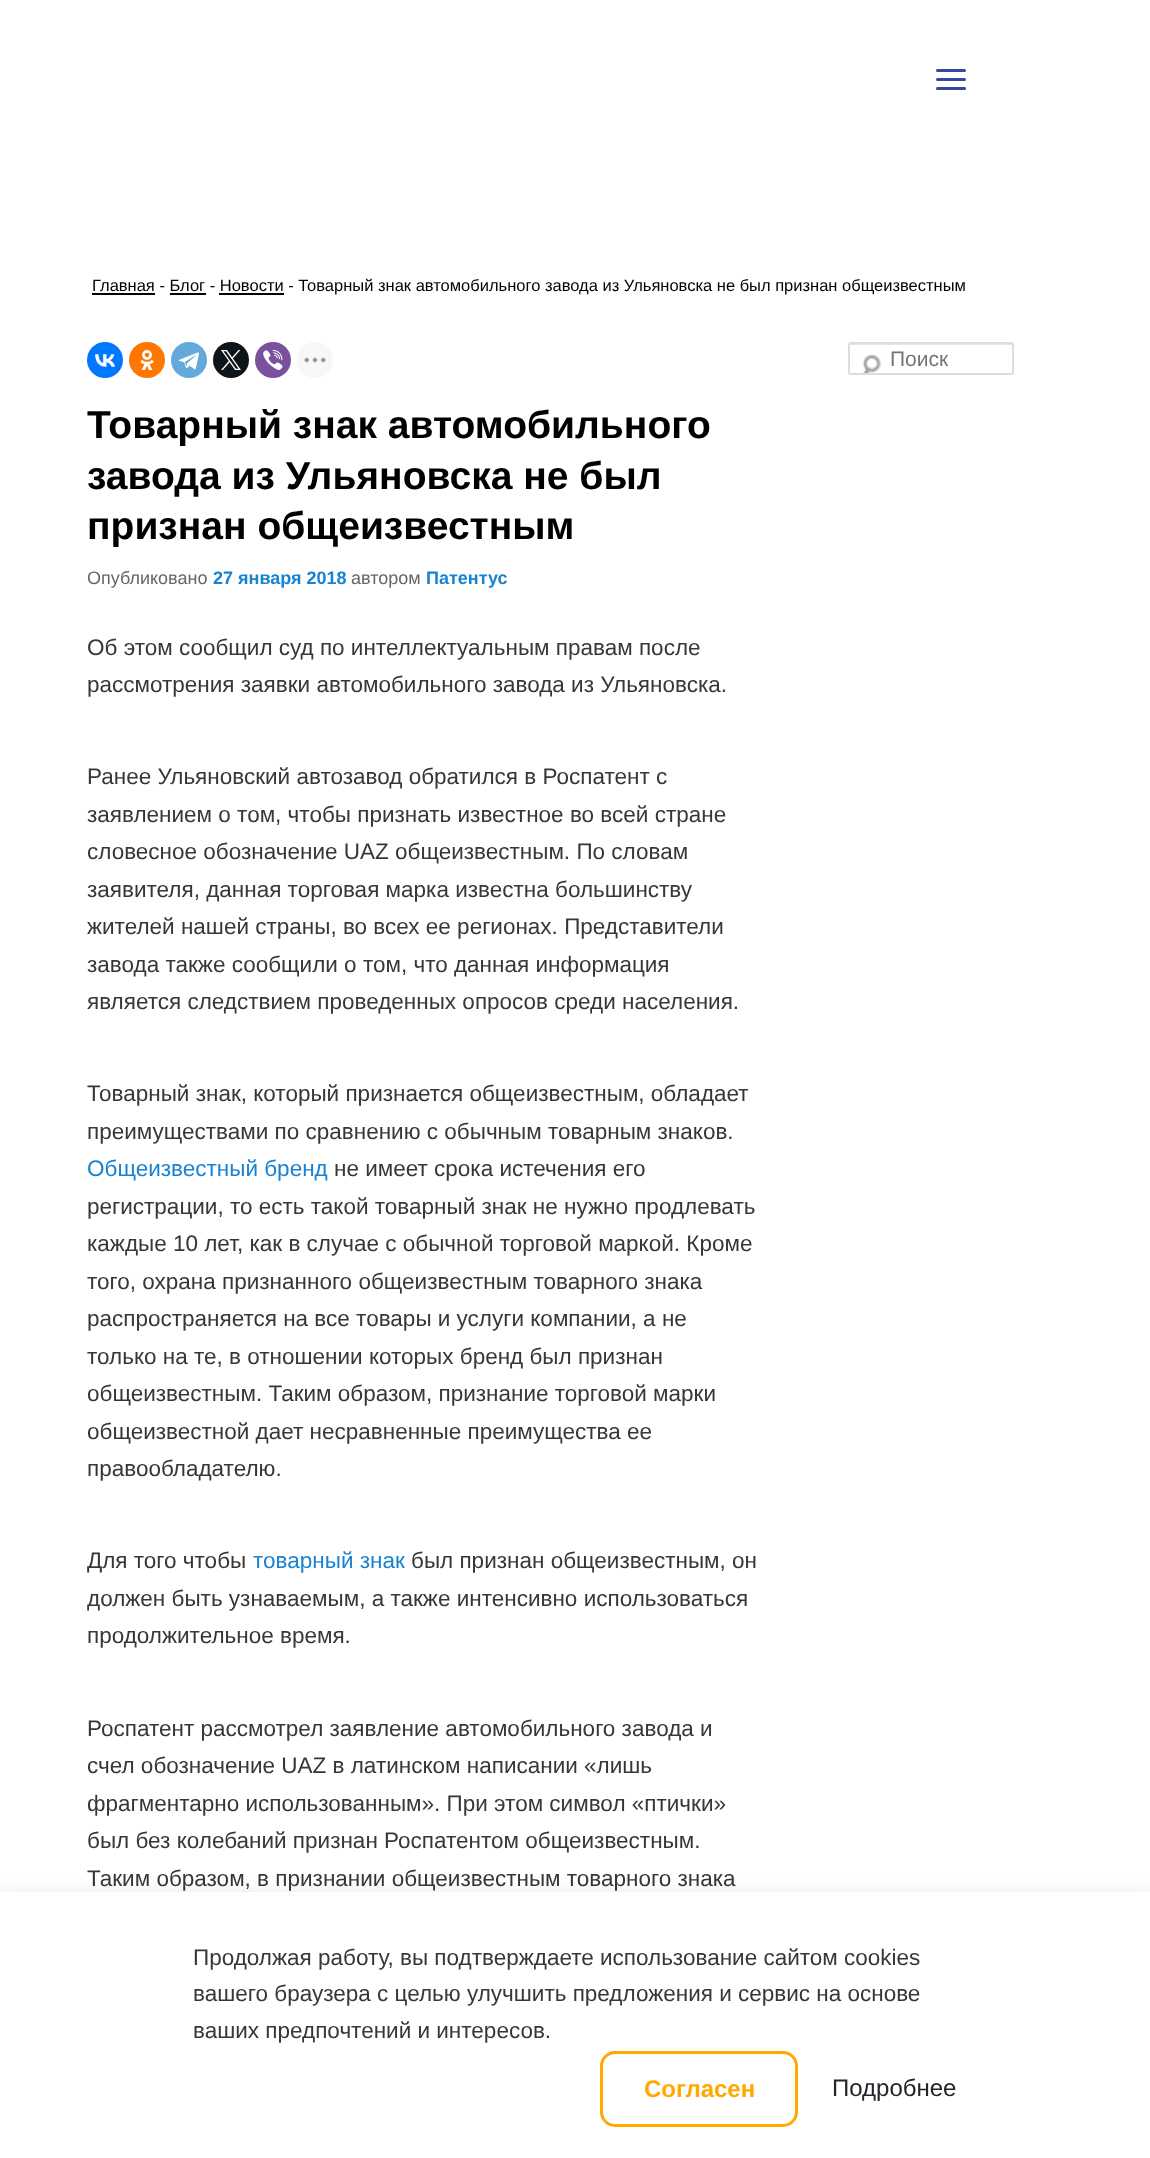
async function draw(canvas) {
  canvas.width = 1150
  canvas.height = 2158
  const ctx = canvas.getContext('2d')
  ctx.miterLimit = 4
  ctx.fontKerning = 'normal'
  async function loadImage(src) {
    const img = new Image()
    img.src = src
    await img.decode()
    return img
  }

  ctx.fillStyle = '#fff'
  ctx.fillRect(0, 0, 1150, 2158)
  ctx.fillStyle = '#324a9e'
  ctx.beginPath()
  ctx.roundRect(936, 69, 30, 3, 1.5)
  ctx.fill()
  ctx.beginPath()
  ctx.roundRect(936, 78, 30, 3, 1.5)
  ctx.fill()
  ctx.beginPath()
  ctx.roundRect(936, 87, 30, 3, 1.5)
  ctx.fill()
  ctx.fillStyle = '#000'
  ctx.fillRect(92, 293, 63, 2)
  ctx.font = '16.5px Liberation Sans'
  ctx.fillText('Главная - Блог - Новости - Товарный знак автомобильного завода из Ульяновска не был признан общеизвестным', 92, 291)
  ctx.fillRect(170, 293, 36, 2)
  ctx.fillRect(219, 293, 65, 2)
  ctx.drawImage(await loadImage('image0.png'), 862, 354, 19, 19)
  ctx.fillStyle = '#e6e6e6'
  ctx.beginPath()
  ctx.moveTo(850, 345)
  ctx.lineTo(1011, 345)
  ctx.bezierCurveTo(1012, 345, 1012, 346, 1012, 346)
  ctx.lineTo(1012, 374)
  ctx.bezierCurveTo(1014, 373, 1013, 349, 1013, 346)
  ctx.lineTo(1013, 344)
  ctx.lineTo(1012, 344)
  ctx.lineTo(850, 344)
  ctx.bezierCurveTo(849, 344, 849, 345, 849, 346)
  ctx.closePath()
  ctx.fill()
  ctx.beginPath()
  ctx.roundRect(849, 343, 164, 31, 2)
  ctx.strokeStyle = '#ddd'
  ctx.lineWidth = 2
  ctx.stroke()
  ctx.font = '21px Liberation Sans'
  ctx.fillStyle = '#757575'
  ctx.fillText('Поиск', 890, 366)
  ctx.fillStyle = '#07f'
  ctx.beginPath()
  ctx.arc(105, 360, 18, 0, 2 * Math.PI)
  ctx.fill()
  ctx.drawImage(await loadImage('image1.png'), 95, 354, 20, 13)
  ctx.fillStyle = '#f70'
  ctx.beginPath()
  ctx.arc(147, 360, 18, 0, 2 * Math.PI)
  ctx.fill()
  ctx.drawImage(await loadImage('image2.png'), 140, 350, 14, 20)
  ctx.fillStyle = '#64a9dc'
  ctx.beginPath()
  ctx.arc(189, 360, 18, 0, 2 * Math.PI)
  ctx.fill()
  ctx.drawImage(await loadImage('image3.png'), 179, 352, 20, 18)
  ctx.fillStyle = '#0f1419'
  ctx.beginPath()
  ctx.arc(231, 360, 18, 0, 2 * Math.PI)
  ctx.fill()
  ctx.drawImage(await loadImage('image4.png'), 221, 350, 20, 20)
  ctx.fillStyle = '#7b519d'
  ctx.beginPath()
  ctx.arc(273, 360, 18, 0, 2 * Math.PI)
  ctx.fill()
  ctx.drawImage(await loadImage('image5.png'), 263, 350, 20, 20)
  ctx.fillStyle = '#f7f7f7'
  ctx.beginPath()
  ctx.arc(315, 360, 18, 0, 2 * Math.PI)
  ctx.fill()
  ctx.drawImage(await loadImage('image6.png'), 304, 357, 22, 6)
  ctx.font = 'bold 39px Liberation Sans'
  ctx.fillStyle = '#000'
  ctx.fillText('Товарный знак автомобильного', 87, 438)
  ctx.fillText('завода из Ульяновска не был', 87, 489)
  ctx.fillText('признан общеизвестным', 87, 539)
  ctx.font = '18px Liberation Sans'
  ctx.fillStyle = '#666'
  ctx.fillText('Опубликовано', 87, 584)
  ctx.font = 'bold 18px Liberation Sans'
  ctx.fillStyle = '#1982d1'
  ctx.fillText('27 января 2018', 213, 584)
  ctx.font = '18px Liberation Sans'
  ctx.fillStyle = '#666'
  ctx.fillText('автором', 351, 584)
  ctx.font = 'bold 18px Liberation Sans'
  ctx.fillStyle = '#1982d1'
  ctx.fillText('Патентус', 426, 584)
  ctx.font = '22.5px Liberation Sans'
  ctx.fillStyle = '#373737'
  ctx.fillText('Об этом сообщил суд по интеллектуальным правам после', 87, 655)
  ctx.fillText('рассмотрения заявки автомобильного завода из Ульяновска.', 87, 692)
  ctx.fillText('Ранее Ульяновский автозавод обратился в Роспатент с', 87, 784)
  ctx.fillText('заявлением о том, чтобы признать известное во всей стране', 87, 822)
  ctx.fillText('словесное обозначение UAZ общеизвестным. По словам', 87, 859)
  ctx.fillText('заявителя, данная торговая марка известна большинству', 87, 897)
  ctx.fillText('жителей нашей страны, во всех ее регионах. Представители', 87, 934)
  ctx.fillText('завода также сообщили о том, что данная информация', 87, 972)
  ctx.fillText('является следствием проведенных опросов среди населения.', 87, 1009)
  ctx.fillText('Товарный знак, который признается общеизвестным, обладает', 87, 1101)
  ctx.fillText('преимуществами по сравнению с обычным товарным знаков.', 87, 1139)
  ctx.fillStyle = '#1982d1'
  ctx.fillText('Общеизвестный бренд', 87, 1176)
  ctx.fillStyle = '#373737'
  ctx.fillText('не имеет срока истечения его', 334, 1176)
  ctx.fillText('регистрации, то есть такой товарный знак не нужно продлевать', 87, 1214)
  ctx.fillText('каждые 10 лет, как в случае с обычной торговой маркой. Кроме', 87, 1251)
  ctx.fillText('того, охрана признанного общеизвестным товарного знака', 87, 1289)
  ctx.fillText('распространяется на все товары и услуги компании, а не', 87, 1326)
  ctx.fillText('только на те, в отношении которых бренд был признан', 87, 1364)
  ctx.fillText('общеизвестным. Таким образом, признание торговой марки', 87, 1401)
  ctx.fillText('общеизвестной дает несравненные преимущества ее', 87, 1439)
  ctx.fillText('правообладателю.', 87, 1476)
  ctx.fillText('Для того чтобы', 87, 1568)
  ctx.fillStyle = '#1982d1'
  ctx.fillText('товарный знак', 253, 1568)
  ctx.fillStyle = '#373737'
  ctx.fillText('был признан общеизвестным, он', 411, 1568)
  ctx.fillText('должен быть узнаваемым, а также интенсивно использоваться', 87, 1606)
  ctx.fillText('продолжительное время.', 87, 1643)
  ctx.fillText('Роспатент рассмотрел заявление автомобильного завода и', 87, 1736)
  ctx.fillText('счел обозначение UAZ в латинском написании «лишь', 87, 1773)
  ctx.fillText('фрагментарно использованным». При этом символ «птички»', 87, 1811)
  ctx.fillText('был без колебаний признан Роспатентом общеизвестным.', 87, 1848)
  ctx.fillText('Таким образом, в признании общеизвестным товарного знака', 87, 1886)
  ctx.fillStyle = '#00000026'
  ctx.filter = 'blur(11px)'
  ctx.beginPath()
  ctx.rect(0, 1898, 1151, 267)
  ctx.fill()
  ctx.filter = 'none'
  ctx.fillStyle = '#fff'
  ctx.fillRect(0, 1892, 1150, 266)
  ctx.fillStyle = '#373737'
  ctx.fillText('Продолжая работу, вы подтверждаете использование сайтом cookies', 193, 1965)
  ctx.fillText('вашего браузера с целью улучшить предложения и сервис на основе', 193, 2001)
  ctx.fillText('ваших предпочтений и интересов.', 193, 2038)
  ctx.beginPath()
  ctx.roundRect(601.5, 2052.5, 195, 73, 13.5)
  ctx.strokeStyle = '#ffa800'
  ctx.lineWidth = 3
  ctx.stroke()
  ctx.font = 'bold 24px Liberation Sans'
  ctx.fillStyle = '#ffa800'
  ctx.fillText('Согласен', 644, 2097)
  ctx.font = '24px Liberation Sans'
  ctx.fillStyle = '#212529'
  ctx.fillText('Подробнее', 832, 2096)
}

draw(document.querySelector('canvas'))
